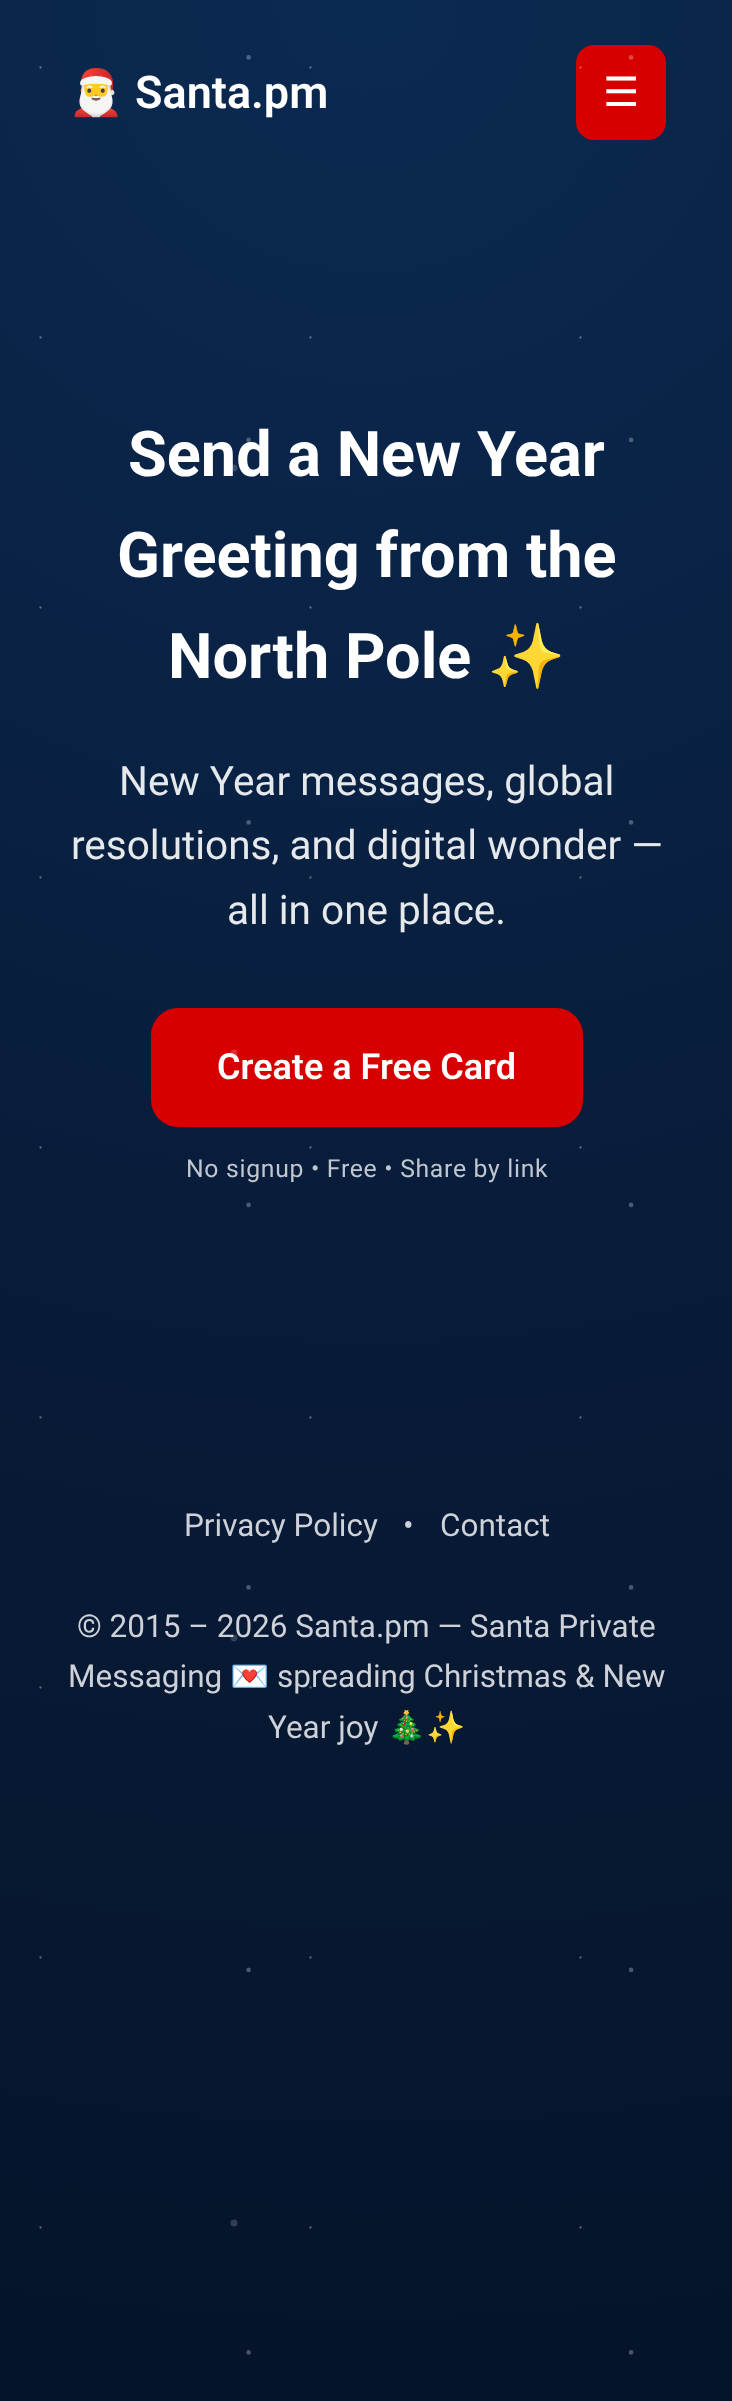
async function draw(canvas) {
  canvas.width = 732
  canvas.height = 2401
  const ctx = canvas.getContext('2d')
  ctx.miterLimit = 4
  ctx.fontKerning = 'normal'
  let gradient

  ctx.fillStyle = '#fff'
  ctx.fillRect(0, 0, 732, 2401)
  gradient = ctx.createRadialGradient(367, 0, 0, 367, 0, 2431)
  gradient.addColorStop(0, '#0b2a52')
  gradient.addColorStop(0.55, '#081b38')
  gradient.addColorStop(1, '#06142a')
  ctx.fillStyle = gradient
  ctx.fillRect(0, 0, 732, 2401)
  ctx.font = 'bold 63px Roboto'
  ctx.fillStyle = '#fff'
  ctx.fillText('Send a New Year', 128, 476)
  ctx.fillText('Greeting from the', 117, 577)
  ctx.fillText('North Pole', 168, 678)
  ctx.font = '40.5px Roboto'
  ctx.fillStyle = '#e6e9ec'
  ctx.fillText('New Year messages, global', 119, 795)
  ctx.fillText('resolutions, and digital wonder —', 71, 859)
  ctx.fillText('all in one place.', 227, 924)
  ctx.fillStyle = '#d60000'
  ctx.beginPath()
  ctx.roundRect(151, 1008, 432, 119, 27)
  ctx.fill()
  ctx.font = '600 36px Roboto'
  ctx.fillStyle = '#fff'
  ctx.fillText('Create a Free Card', 217, 1079)
  ctx.letterSpacing = '0.7px'
  ctx.font = '24.75px Roboto'
  ctx.fillStyle = '#c1c7ce'
  ctx.fillText('No signup • Free • Share by link', 186, 1177)
  ctx.letterSpacing = '0px'
  ctx.font = '31.5px Roboto'
  ctx.fillStyle = '#ced1d7'
  ctx.fillText('Privacy Policy', 184, 1536)
  ctx.fillText('© 2015 – 2026 Santa.pm — Santa Private', 77, 1637)
  ctx.font = '31.5px Noto Color Emoji'
  ctx.fillText('💌', 230, 1687)
  ctx.beginPath()
  ctx.moveTo(234, 468)
  ctx.lineTo(234, 2223.5)
  ctx.strokeStyle = '#ffffff2e'
  ctx.lineWidth = 6.9
  ctx.lineCap = 'round'
  ctx.setLineDash([0, 585])
  ctx.stroke()
  ctx.font = '600 45px Roboto'
  ctx.fillStyle = '#fff'
  ctx.fillText('Santa.pm', 135, 108)
  ctx.beginPath()
  ctx.moveTo(248.6, 57.4)
  ctx.lineTo(248.6, 2352.8)
  ctx.strokeStyle = '#ffffff47'
  ctx.lineWidth = 4.6
  ctx.setLineDash([0, 382.5])
  ctx.stroke()
  ctx.fillStyle = '#d60000'
  ctx.beginPath()
  ctx.roundRect(576, 45, 90, 95, 18)
  ctx.fill()
  ctx.font = '40.5px DejaVu Sans'
  ctx.fillStyle = '#fff'
  ctx.fillText('☰', 603, 106)
  ctx.font = '31.5px Roboto'
  ctx.fillStyle = '#ced1d7'
  ctx.fillText('spreading Christmas & New', 277, 1687)
  ctx.beginPath()
  ctx.moveTo(631.1, 57.4)
  ctx.lineTo(631.1, 2352.8)
  ctx.stroke()
  ctx.beginPath()
  ctx.moveTo(40.5, 67.5)
  ctx.lineTo(40.5, 2228)
  ctx.strokeStyle = '#ffffff59'
  ctx.lineWidth = 2.3
  ctx.setLineDash([0, 270])
  ctx.stroke()
  ctx.fillText('Year joy', 268, 1738)
  ctx.beginPath()
  ctx.moveTo(310.5, 67.5)
  ctx.lineTo(310.5, 2228)
  ctx.stroke()
  ctx.beginPath()
  ctx.moveTo(580.5, 67.5)
  ctx.lineTo(580.5, 2228)
  ctx.stroke()
  ctx.font = 'bold 45px Noto Color Emoji'
  ctx.fillStyle = '#fff'
  ctx.fillText('🎅', 68, 108)
  ctx.font = 'bold 63px Noto Color Emoji'
  ctx.fillText('✨', 487, 678)
  ctx.font = '31.5px Roboto'
  ctx.fillStyle = '#ced1d7'
  ctx.fillText('•', 403, 1536)
  ctx.fillText('Contact', 440, 1536)
  ctx.fillText('Messaging', 68, 1687)
  ctx.font = '31.5px Noto Color Emoji'
  ctx.fillText('🎄✨', 387, 1738)
}

draw(document.querySelector('canvas'))
